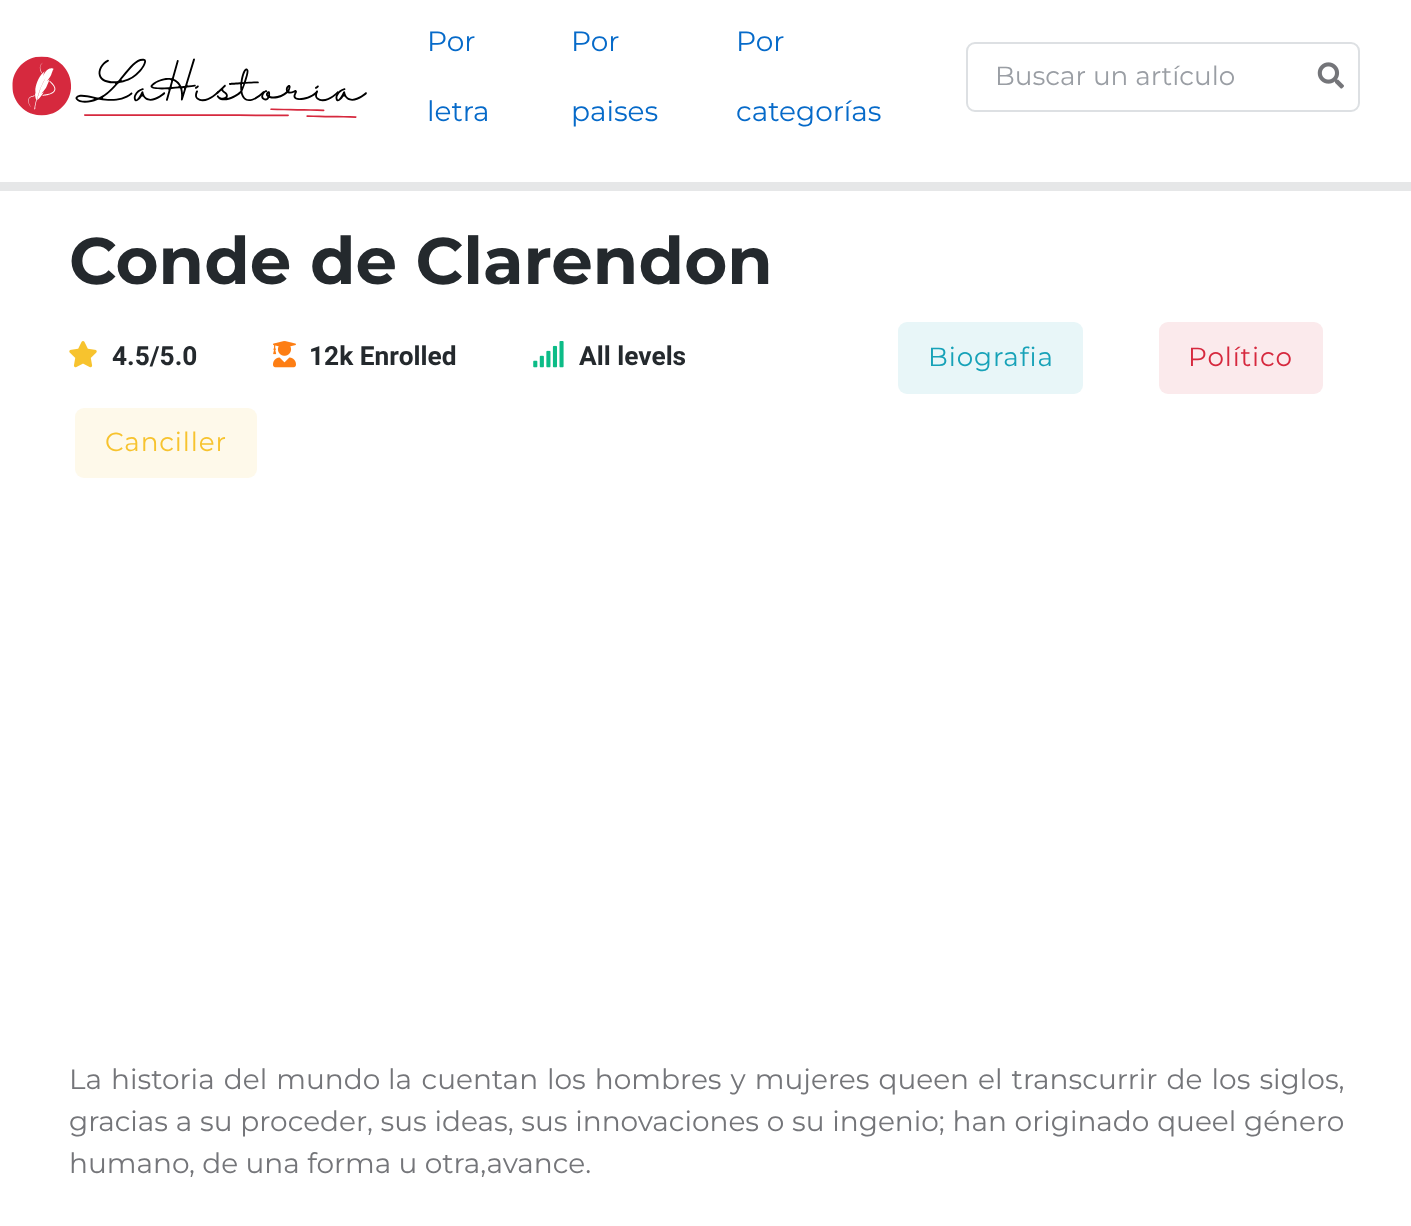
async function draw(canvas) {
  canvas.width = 1411
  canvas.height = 1226
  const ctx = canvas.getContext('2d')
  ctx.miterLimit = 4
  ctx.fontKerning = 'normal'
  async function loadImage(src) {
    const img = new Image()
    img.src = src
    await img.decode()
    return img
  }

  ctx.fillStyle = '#fff'
  ctx.fillRect(0, 0, 1411, 1226)
  ctx.drawImage(await loadImage('image0.png'), 12, 56, 355, 62)
  ctx.font = '28px Montserrat'
  ctx.fillStyle = '#066ac9'
  ctx.fillText('Por', 427, 51)
  ctx.fillText('letra', 427, 121)
  ctx.fillText('Por', 571, 51)
  ctx.fillText('paises', 571, 121)
  ctx.fillText('Por', 736, 51)
  ctx.fillText('categorías', 736, 121)
  ctx.beginPath()
  ctx.roundRect(967, 43, 392, 68, 8)
  ctx.strokeStyle = '#dde0e3'
  ctx.lineWidth = 2
  ctx.stroke()
  ctx.font = '26.25px Montserrat'
  ctx.fillStyle = '#9a9ea4'
  ctx.fillText('Buscar un artículo', 995, 85)
  ctx.drawImage(await loadImage('image1.png'), 1317, 62, 27, 27)
  ctx.fillStyle = '#e6e7e8'
  ctx.fillRect(0, 182, 1411, 9)
  ctx.font = 'bold 65.8px Montserrat'
  ctx.fillStyle = '#24292d'
  ctx.fillText('Conde de Clarendon', 69, 284)
  ctx.drawImage(await loadImage('image2.png'), 69, 341, 28, 27)
  ctx.font = 'bold 26.25px Heebo'
  ctx.fillText('4.5/5.0', 112, 365)
  ctx.drawImage(await loadImage('image3.png'), 273, 341, 23, 27)
  ctx.fillText('12k Enrolled', 309, 365)
  ctx.drawImage(await loadImage('image4.png'), 533, 341, 31, 27)
  ctx.fillText('All levels', 579, 365)
  ctx.fillStyle = '#e8f6f8'
  ctx.beginPath()
  ctx.roundRect(898, 322, 185, 72, 9)
  ctx.fill()
  ctx.letterSpacing = '0.9px'
  ctx.font = '26.25px Montserrat'
  ctx.fillStyle = '#17a2b8'
  ctx.fillText('Biografia', 928, 366)
  ctx.fillStyle = '#fbeaec'
  ctx.beginPath()
  ctx.roundRect(1159, 322, 164, 72, 9)
  ctx.fill()
  ctx.fillStyle = '#d6293e'
  ctx.fillText('Político', 1188, 366)
  ctx.fillStyle = '#fef9ea'
  ctx.beginPath()
  ctx.roundRect(75, 408, 182, 70, 9)
  ctx.fill()
  ctx.fillStyle = '#f7c32e'
  ctx.fillText('Canciller', 105, 451)
  ctx.letterSpacing = '0px'
  ctx.wordSpacing = '1.75px'
  ctx.font = '28px Montserrat'
  ctx.fillStyle = '#747579'
  ctx.fillText('La historia del mundo', 69, 1089)
  ctx.wordSpacing = '2px'
  ctx.fillText('la cuentan', 388, 1089)
  ctx.wordSpacing = '1.75px'
  ctx.fillText('los hombres y mujeres queen el transcurrir de los siglos,', 547, 1089)
  ctx.wordSpacing = '0.4px'
  ctx.fillText('gracias a su proceder, sus ideas, sus innovaciones o su ingenio; han originado queel género', 69, 1131)
  ctx.wordSpacing = '0px'
  ctx.fillText('humano, de una forma u otra,avance.', 69, 1173)
}

draw(document.querySelector('canvas'))
